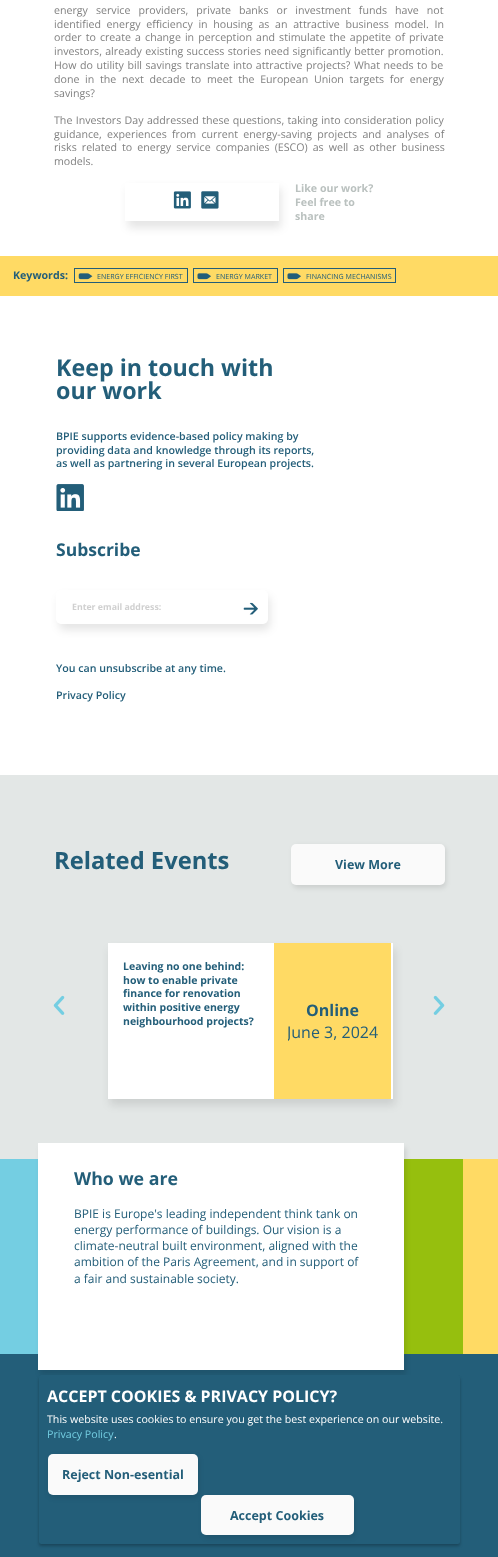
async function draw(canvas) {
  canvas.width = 498
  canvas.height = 1557
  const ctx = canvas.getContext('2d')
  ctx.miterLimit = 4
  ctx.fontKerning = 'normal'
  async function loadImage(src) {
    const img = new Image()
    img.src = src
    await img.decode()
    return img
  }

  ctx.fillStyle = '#fff'
  ctx.fillRect(0, 0, 498, 1557)
  ctx.wordSpacing = '5.25px'
  ctx.font = '10.65px Open Sans'
  ctx.fillStyle = '#818181'
  ctx.fillText('energy service providers, private banks or investment funds have not', 54, 14)
  ctx.wordSpacing = '2.9px'
  ctx.fillText('identified energy efficiency in housing as an attractive business model. In', 54, 28)
  ctx.wordSpacing = '1.3px'
  ctx.fillText('order to create a change in perception and stimulate the appetite of private', 54, 41)
  ctx.wordSpacing = '0.5px'
  ctx.fillText('investors, already existing success stories need significantly better promotion.', 54, 55)
  ctx.wordSpacing = '0.75px'
  ctx.fillText('How do utility bill savings translate into attractive projects? What needs to be', 54, 69)
  ctx.wordSpacing = '2.9px'
  ctx.fillText('done in the next decade to meet the European Union targets for energy', 54, 83)
  ctx.wordSpacing = '0px'
  ctx.fillText('savings?', 54, 97)
  ctx.wordSpacing = '0.6px'
  ctx.fillText('The Investors Day addressed these questions, taking into consideration policy', 54, 124)
  ctx.wordSpacing = '2.5px'
  ctx.fillText('guidance, experiences from current energy-saving projects and analyses of', 54, 138)
  ctx.wordSpacing = '2.25px'
  ctx.fillText('risks related to energy service companies (ESCO) as well as other business', 54, 151)
  ctx.wordSpacing = '0px'
  ctx.fillText('models.', 54, 165)
  ctx.fillStyle = '#0000001a'
  ctx.filter = 'blur(4px)'
  ctx.beginPath()
  ctx.rect(128, 188, 153, 40)
  ctx.fill()
  ctx.filter = 'none'
  ctx.fillStyle = '#fff'
  ctx.fillRect(125, 183, 154, 38)
  ctx.drawImage(await loadImage('image0.png'), 173, 191, 18, 18)
  ctx.drawImage(await loadImage('image1.png'), 201, 191, 18, 18)
  ctx.font = 'bold 10.65px Open Sans'
  ctx.fillStyle = '#bac1bf'
  ctx.fillText('Like our work?', 295, 192)
  ctx.fillText('Feel free to', 295, 206)
  ctx.fillText('share', 295, 220)
  ctx.fillStyle = '#ffda64'
  ctx.fillRect(0, 256, 498, 40)
  ctx.fillStyle = '#235e79'
  ctx.fillText('Keywords:', 13, 279)
  ctx.strokeStyle = '#235e79'
  ctx.strokeRect(74.5, 268.5, 113, 14)
  ctx.drawImage(await loadImage('image2.png'), 78, 273, 15, 7)
  ctx.font = '7.1px Open Sans'
  ctx.fillText('ENERGY EFFICIENCY FIRST', 97, 279)
  ctx.strokeRect(193.5, 268.5, 84, 14)
  ctx.drawImage(await loadImage('image3.png'), 197, 273, 14, 7)
  ctx.fillText('ENERGY MARKET', 216, 279)
  ctx.strokeRect(283.5, 268.5, 112, 14)
  ctx.drawImage(await loadImage('image3.png'), 287, 273, 14, 7)
  ctx.fillText('FINANCING MECHANISMS', 306, 279)
  ctx.font = 'bold 23.25px Open Sans'
  ctx.fillText('Keep in touch with', 56, 376)
  ctx.fillText('our work', 56, 399)
  ctx.font = '600 10.65px Open Sans'
  ctx.fillText('BPIE supports evidence-based policy making by', 56, 440)
  ctx.fillText('providing data and knowledge through its reports,', 56, 454)
  ctx.fillText('as well as partnering in several European projects.', 56, 467)
  ctx.drawImage(await loadImage('image4.png'), 56, 484, 28, 27)
  ctx.font = 'bold 17.5px Open Sans'
  ctx.fillText('Subscribe', 56, 556)
  ctx.fillStyle = '#0000001a'
  ctx.filter = 'blur(4px)'
  ctx.beginPath()
  ctx.roundRect(59, 596, 211, 34, 5)
  ctx.fill()
  ctx.filter = 'none'
  ctx.fillStyle = '#fff'
  ctx.beginPath()
  ctx.roundRect(56, 590, 212, 34, 5)
  ctx.fill()
  ctx.font = 'bold 8.75px Open Sans'
  ctx.fillStyle = '#d0d0d0'
  ctx.fillText('Enter email address:', 72, 610)
  ctx.drawImage(await loadImage('image5.png'), 243, 602, 15, 13)
  ctx.font = '600 10.65px Open Sans'
  ctx.fillStyle = '#235e79'
  ctx.fillText('You can unsubscribe at any time.', 56, 672)
  ctx.fillText('Privacy Policy', 56, 699)
  ctx.fillStyle = '#e3e7e6'
  ctx.fillRect(0, 775, 498, 384)
  ctx.font = 'bold 23.75px Open Sans'
  ctx.fillStyle = '#235e79'
  ctx.fillText('Related Events', 54, 869)
  ctx.fillStyle = '#0000001a'
  ctx.filter = 'blur(2.5px)'
  ctx.beginPath()
  ctx.roundRect(293, 846, 153, 42, 5)
  ctx.fill()
  ctx.filter = 'none'
  ctx.fillStyle = '#fafafa'
  ctx.beginPath()
  ctx.roundRect(291, 844, 154, 41, 5)
  ctx.fill()
  ctx.font = 'bold 12.5px Open Sans'
  ctx.fillStyle = '#235e79'
  ctx.fillText('View More', 335, 869)
  ctx.fillStyle = '#0000001a'
  ctx.filter = 'blur(4px)'
  ctx.beginPath()
  ctx.rect(110, 949, 285, 156)
  ctx.fill()
  ctx.filter = 'none'
  ctx.fillStyle = '#fff'
  ctx.fillRect(108, 943, 285, 156)
  ctx.font = 'bold 10.5px Open Sans'
  ctx.fillStyle = '#235e79'
  ctx.fillText('Leaving no one behind:', 123, 970)
  ctx.fillText('how to enable private', 123, 984)
  ctx.fillText('finance for renovation', 123, 997)
  ctx.fillText('within positive energy', 123, 1011)
  ctx.fillText('neighbourhood projects?', 123, 1025)
  ctx.fillStyle = '#ffda64'
  ctx.fillRect(274, 943, 117, 156)
  ctx.font = 'bold 16px Open Sans'
  ctx.fillStyle = '#235e79'
  ctx.fillText('Online', 306, 1016)
  ctx.save()
  ctx.beginPath()
  ctx.rect(288, 998, 90, 45)
  ctx.clip()
  ctx.font = '16px Open Sans'
  ctx.fillText('June 3, 2024', 287, 1038)
  ctx.restore()
  ctx.drawImage(await loadImage('image6.png'), 53, 995, 12, 20)
  ctx.drawImage(await loadImage('image7.png'), 433, 995, 12, 20)
  ctx.fillStyle = '#74cee2'
  ctx.fillRect(0, 1159, 38, 195)
  ctx.fillStyle = '#96bf0e'
  ctx.fillRect(404, 1159, 59, 195)
  ctx.fillStyle = '#235e79'
  ctx.fillRect(0, 1354, 498, 203)
  ctx.fillStyle = '#0000001a'
  ctx.filter = 'blur(2.5px)'
  ctx.beginPath()
  ctx.rect(40, 1148, 366, 227)
  ctx.fill()
  ctx.filter = 'none'
  ctx.fillStyle = '#fff'
  ctx.fillRect(38, 1143, 366, 227)
  ctx.font = 'bold 17.75px Open Sans'
  ctx.fillStyle = '#235e79'
  ctx.fillText('Who we are', 74, 1185)
  ctx.font = '12px Open Sans'
  ctx.fillText('BPIE is Europe\'s leading independent think tank on', 74, 1218)
  ctx.fillText('energy performance of buildings. Our vision is a', 74, 1234)
  ctx.fillText('climate-neutral built environment, aligned with the', 74, 1250)
  ctx.fillText('ambition of the Paris Agreement, and in support of', 74, 1266)
  ctx.fillText('a fair and sustainable society.', 74, 1283)
  ctx.fillStyle = '#ffda64'
  ctx.fillRect(463, 1159, 35, 195)
  ctx.fillStyle = '#00000040'
  ctx.filter = 'blur(1.5px)'
  ctx.beginPath()
  ctx.roundRect(39, 1378, 421, 168, 2.5)
  ctx.fill()
  ctx.filter = 'none'
  ctx.fillStyle = '#235e79'
  ctx.beginPath()
  ctx.roundRect(39, 1375, 421, 169, 2.5)
  ctx.fill()
  ctx.font = 'bold 16px Open Sans'
  ctx.fillStyle = '#fff'
  ctx.fillText('ACCEPT COOKIES & PRIVACY POLICY?', 47, 1402)
  ctx.font = '10.65px Open Sans'
  ctx.fillText('This website uses cookies to ensure you get the best experience on our website.', 47, 1423)
  ctx.fillStyle = '#74cee2'
  ctx.fillText('Privacy Policy', 47, 1438)
  ctx.fillStyle = '#fff'
  ctx.fillText('.', 114, 1438)
  ctx.fillStyle = '#0000001a'
  ctx.filter = 'blur(2.5px)'
  ctx.beginPath()
  ctx.roundRect(49, 1456, 150, 42, 5)
  ctx.fill()
  ctx.filter = 'none'
  ctx.fillStyle = '#fafafa'
  ctx.beginPath()
  ctx.roundRect(48, 1454, 150, 41, 5)
  ctx.fill()
  ctx.font = 'bold 12.5px Open Sans'
  ctx.fillStyle = '#235e79'
  ctx.fillText('Reject Non-esential', 62, 1479)
  ctx.fillStyle = '#0000001a'
  ctx.filter = 'blur(2.5px)'
  ctx.beginPath()
  ctx.roundRect(203, 1498, 152, 40, 5)
  ctx.fill()
  ctx.filter = 'none'
  ctx.fillStyle = '#fafafa'
  ctx.beginPath()
  ctx.roundRect(201, 1495, 153, 40, 5)
  ctx.fill()
  ctx.fillStyle = '#235e79'
  ctx.fillText('Accept Cookies', 230, 1520)
}

draw(document.querySelector('canvas'))
